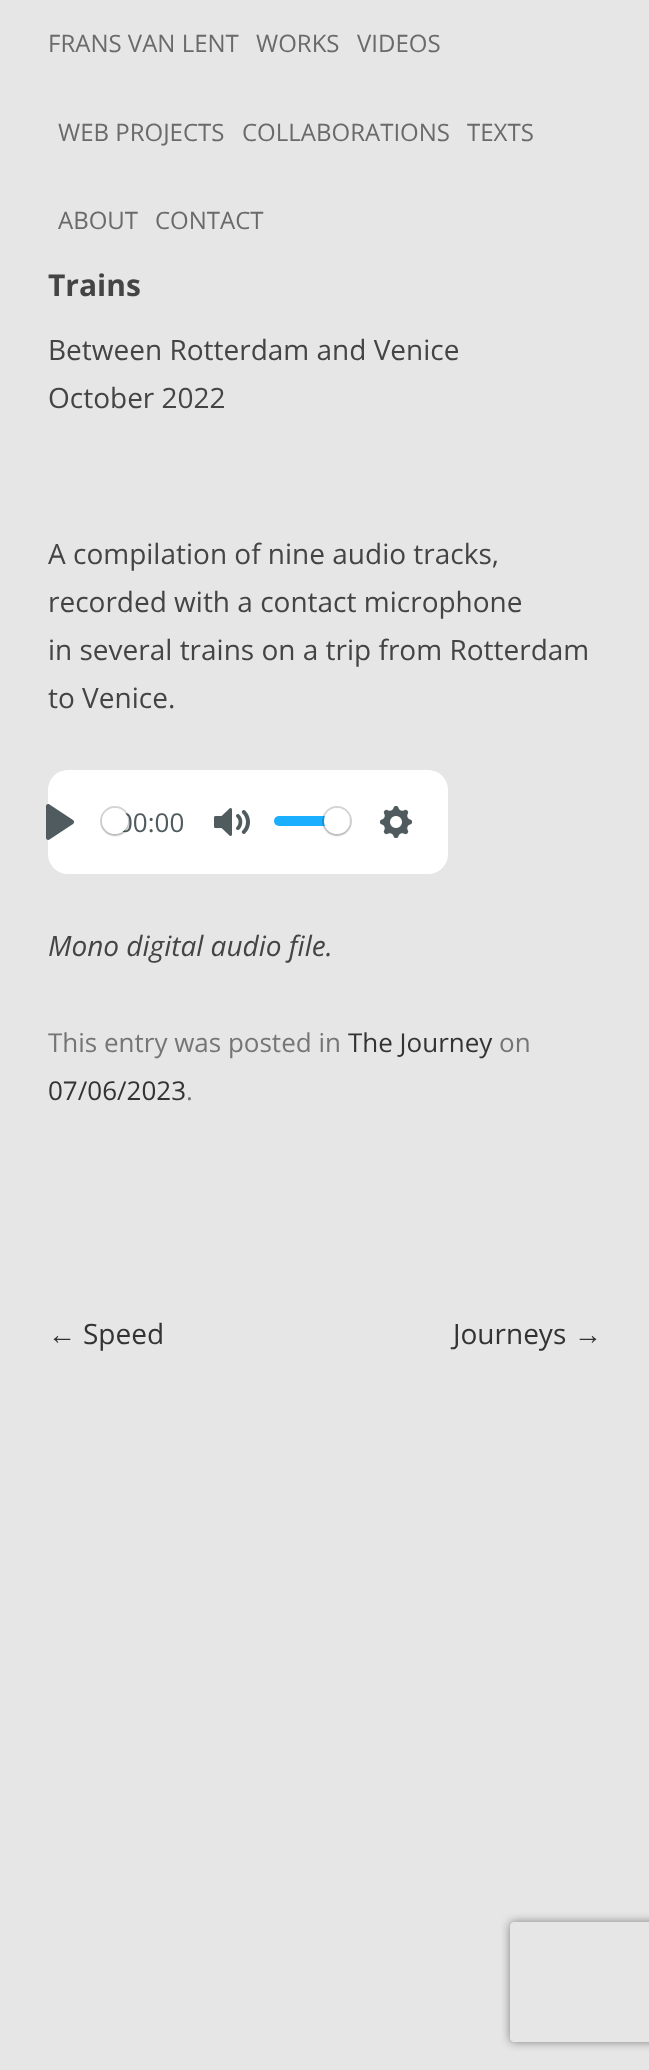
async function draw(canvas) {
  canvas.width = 649
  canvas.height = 2070
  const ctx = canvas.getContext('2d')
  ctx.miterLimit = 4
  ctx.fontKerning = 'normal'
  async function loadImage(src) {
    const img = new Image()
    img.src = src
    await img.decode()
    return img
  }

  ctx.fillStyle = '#e6e6e6'
  ctx.fillRect(0, 0, 649, 2070)
  ctx.font = '24px Open Sans'
  ctx.fillStyle = '#6a6a6a'
  ctx.fillText('FRANS VAN LENT', 48, 52)
  ctx.fillText('WORKS', 256, 52)
  ctx.fillText('VIDEOS', 357, 52)
  ctx.fillText('WEB PROJECTS', 58, 141)
  ctx.fillText('COLLABORATIONS', 242, 141)
  ctx.fillText('TEXTS', 467, 141)
  ctx.fillText('ABOUT', 58, 229)
  ctx.fillText('CONTACT', 155, 229)
  ctx.font = 'bold 30px Open Sans'
  ctx.fillStyle = '#434443'
  ctx.fillText('Trains', 48, 296)
  ctx.font = '28px Open Sans'
  ctx.fillText('Between Rotterdam and Venice', 48, 360)
  ctx.fillText('October 2022', 48, 408)
  ctx.fillText('A compilation of nine audio tracks,', 48, 564)
  ctx.fillText('recorded with a contact microphone', 48, 612)
  ctx.fillText('in several trains on a trip from Rotterdam', 48, 660)
  ctx.fillText('to Venice.', 48, 708)
  ctx.fillStyle = '#fff'
  ctx.beginPath()
  ctx.roundRect(48, 770, 400, 104, 20)
  ctx.fill()
  ctx.fillStyle = '#4f5b5f'
  ctx.beginPath()
  ctx.moveTo(73, 820)
  ctx.lineTo(49.5, 804.5)
  ctx.bezierCurveTo(48, 803.5, 46, 804.5, 46, 806)
  ctx.lineTo(46, 838)
  ctx.bezierCurveTo(46, 839.5, 48, 840.5, 49.5, 839.5)
  ctx.lineTo(73, 824)
  ctx.bezierCurveTo(74.5, 823, 74.5, 821, 73, 820)
  ctx.closePath()
  ctx.fill()
  ctx.font = '26px Open Sans'
  ctx.fillText('00:00', 118, 832)
  ctx.beginPath()
  ctx.arc(115, 821, 14, 0, 2 * Math.PI)
  ctx.strokeStyle = '#23282f33'
  ctx.lineWidth = 2
  ctx.stroke()
  ctx.fillStyle = '#23282f26'
  ctx.filter = 'blur(1px)'
  ctx.beginPath()
  ctx.roundRect(102, 810, 26, 26, 13)
  ctx.fill()
  ctx.filter = 'none'
  ctx.fillStyle = '#fff'
  ctx.beginPath()
  ctx.arc(115, 821, 13, 0, 2 * Math.PI)
  ctx.fill()
  ctx.drawImage(await loadImage('image0.png'), 214, 808, 36, 28)
  ctx.fillStyle = '#1aafff'
  ctx.beginPath()
  ctx.roundRect(274, 816, 76, 10, 5)
  ctx.fill()
  ctx.beginPath()
  ctx.arc(337, 821, 14, 0, 2 * Math.PI)
  ctx.stroke()
  ctx.fillStyle = '#23282f26'
  ctx.filter = 'blur(1px)'
  ctx.beginPath()
  ctx.roundRect(324, 810, 26, 26, 13)
  ctx.fill()
  ctx.filter = 'none'
  ctx.fillStyle = '#fff'
  ctx.beginPath()
  ctx.arc(337, 821, 13, 0, 2 * Math.PI)
  ctx.fill()
  ctx.drawImage(await loadImage('image1.png'), 380, 806, 32, 32)
  ctx.font = 'italic 28px Open Sans'
  ctx.fillStyle = '#434443'
  ctx.fillText('Mono digital audio file.', 48, 956)
  ctx.font = '26px Open Sans'
  ctx.fillStyle = '#757575'
  ctx.fillText('This entry was posted in', 48, 1052)
  ctx.fillStyle = '#343333'
  ctx.fillText('The Journey', 348, 1052)
  ctx.fillStyle = '#757575'
  ctx.fillText('on', 499, 1052)
  ctx.fillStyle = '#343333'
  ctx.fillText('07/06/2023', 48, 1100)
  ctx.fillStyle = '#757575'
  ctx.fillText('.', 186, 1100)
  ctx.font = '28px Liberation Sans'
  ctx.fillStyle = '#343333'
  ctx.fillText('←', 48, 1344)
  ctx.font = '28px Open Sans'
  ctx.fillText('Speed', 83, 1344)
  ctx.fillText('Journeys', 453, 1344)
  ctx.font = '28px Liberation Sans'
  ctx.fillText('→', 574, 1344)
  ctx.save()
  ctx.beginPath()
  ctx.moveTo(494, 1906)
  ctx.lineTo(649, 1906)
  ctx.lineTo(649, 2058)
  ctx.lineTo(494, 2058)
  ctx.closePath()
  ctx.moveTo(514, 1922)
  ctx.lineTo(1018, 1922)
  ctx.bezierCurveTo(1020, 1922, 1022, 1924, 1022, 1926)
  ctx.lineTo(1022, 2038)
  ctx.bezierCurveTo(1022, 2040, 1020, 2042, 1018, 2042)
  ctx.lineTo(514, 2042)
  ctx.bezierCurveTo(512, 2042, 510, 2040, 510, 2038)
  ctx.lineTo(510, 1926)
  ctx.bezierCurveTo(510, 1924, 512, 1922, 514, 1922)
  ctx.closePath()
  ctx.clip('evenodd')
  ctx.fillStyle = '#808080'
  ctx.filter = 'blur(5px)'
  ctx.beginPath()
  ctx.roundRect(510, 1922, 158, 120, 4)
  ctx.fill()
  ctx.filter = 'none'
  ctx.restore()
}

draw(document.querySelector('canvas'))
